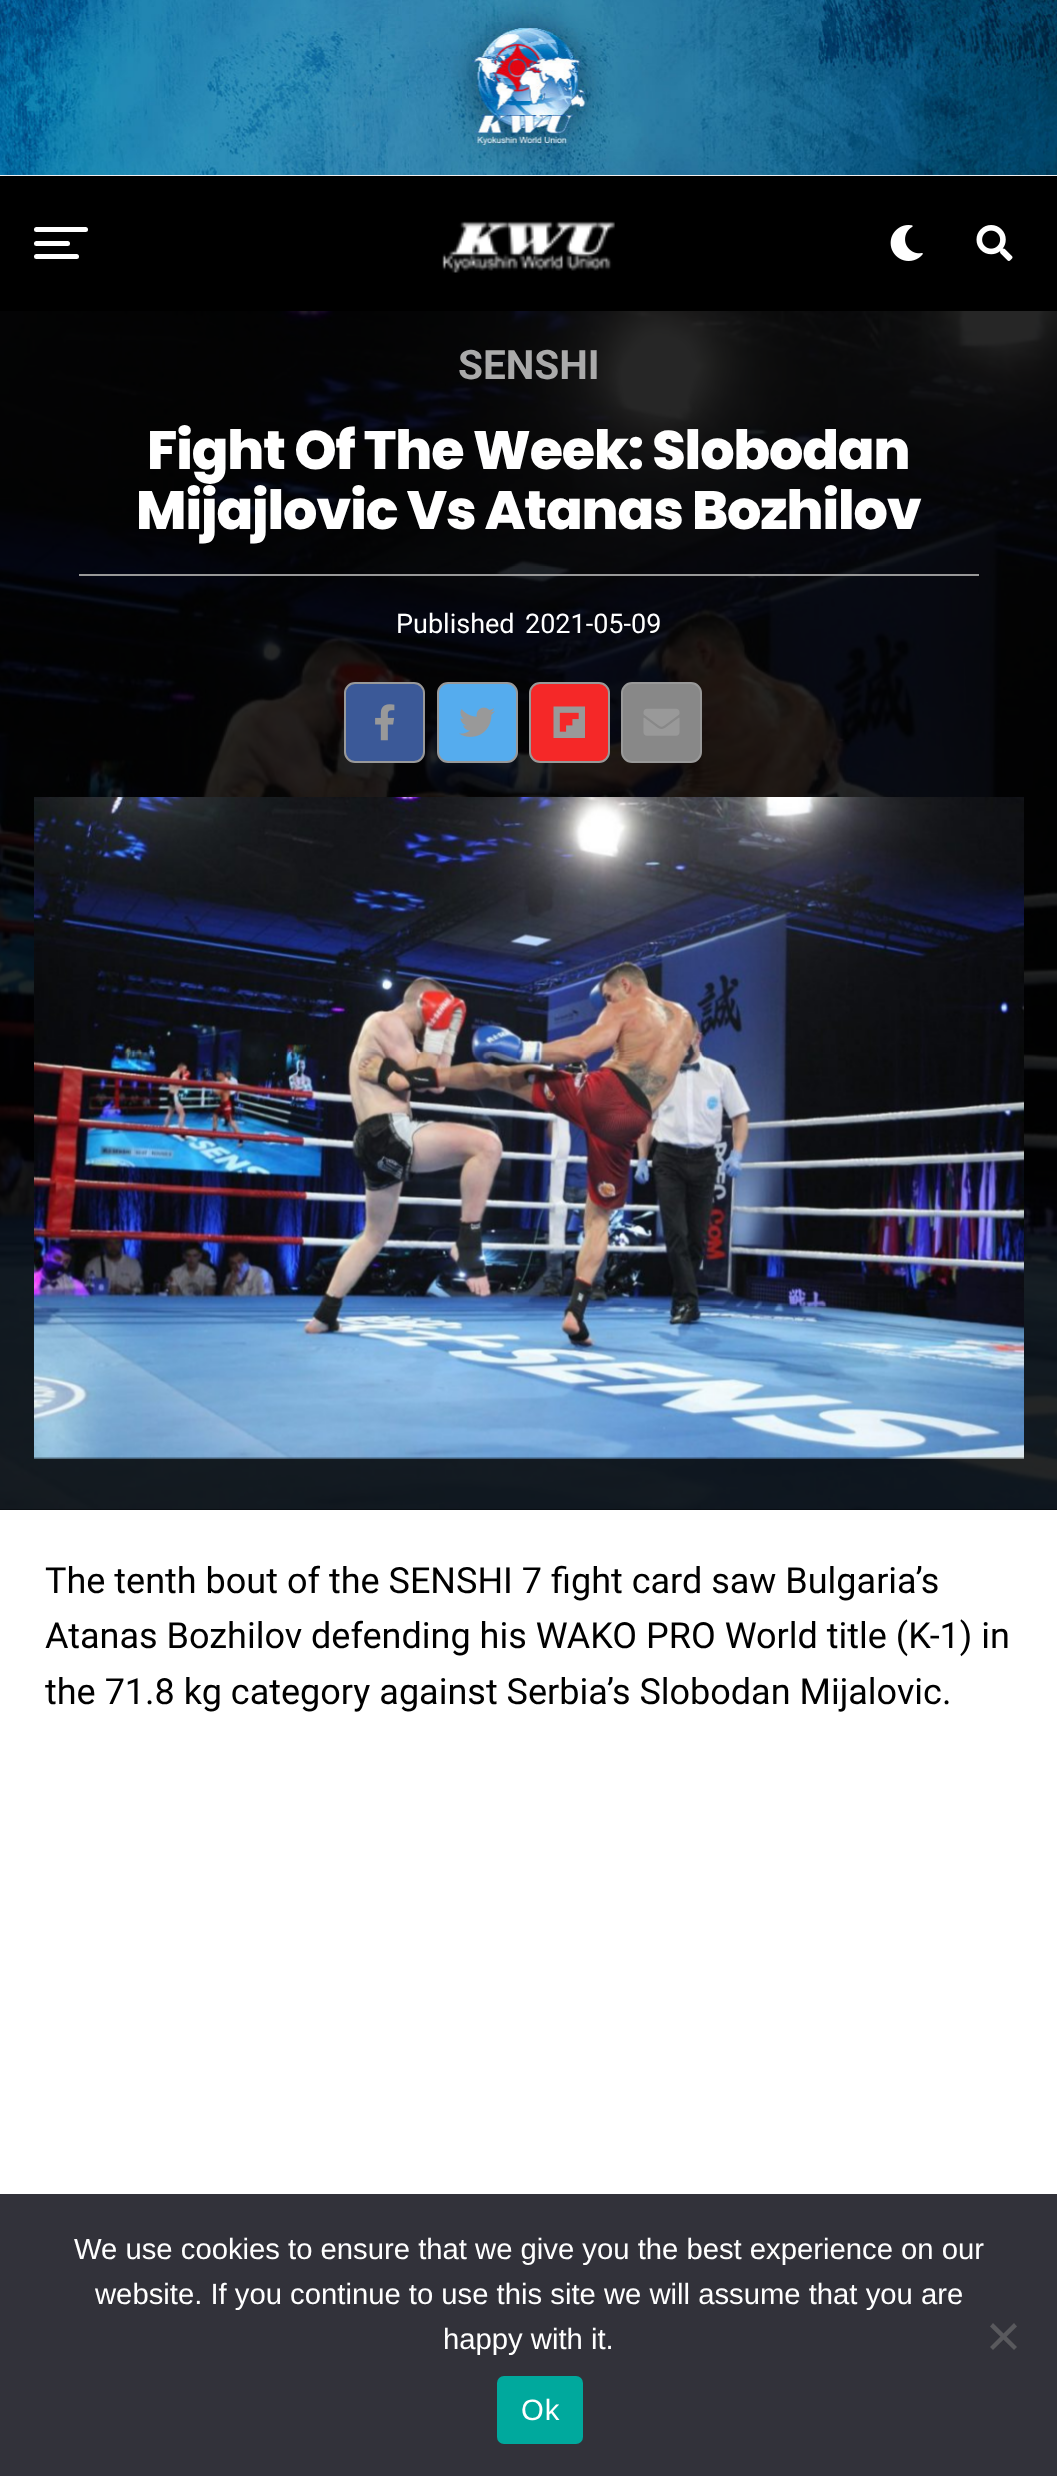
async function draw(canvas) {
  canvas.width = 1057
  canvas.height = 2476
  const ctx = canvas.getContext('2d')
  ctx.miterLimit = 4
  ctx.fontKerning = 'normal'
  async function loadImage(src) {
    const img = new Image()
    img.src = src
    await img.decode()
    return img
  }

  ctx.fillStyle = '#f0f0f0'
  ctx.fillRect(0, 0, 1057, 2476)
  ctx.drawImage(await loadImage('image0.png'), 0, 0, 1057, 175)
  ctx.fillStyle = '#000'
  ctx.fillRect(0, 176, 1057, 1334)
  ctx.fillStyle = '#fff'
  ctx.beginPath()
  ctx.roundRect(34, 227, 54, 5, 2.5)
  ctx.fill()
  ctx.beginPath()
  ctx.roundRect(34, 241, 36, 5, 2.5)
  ctx.fill()
  ctx.beginPath()
  ctx.roundRect(34, 254, 45, 5, 2.5)
  ctx.fill()
  ctx.drawImage(await loadImage('image1.png'), 442, 221, 173, 52)
  ctx.drawImage(await loadImage('image2.png'), 890, 225, 33, 36)
  ctx.drawImage(await loadImage('image3.png'), 976, 225, 37, 36)
  ctx.drawImage(await loadImage('image4.png'), 0, 311, 1057, 1199)
  ctx.font = 'bold 40.5px Roboto'
  ctx.fillStyle = '#aaa'
  ctx.fillText('SENSHI', 458, 379)
  ctx.letterSpacing = '-1.1px'
  ctx.font = '800 54px Poppins'
  ctx.fillStyle = '#fff'
  ctx.fillText('Fight Of The Week: Slobodan', 147, 469)
  ctx.fillText('Mijajlovic Vs Atanas Bozhilov', 136, 529)
  ctx.fillStyle = '#999'
  ctx.fillRect(79, 574, 900, 2)
  ctx.letterSpacing = '0px'
  ctx.font = '27px Roboto'
  ctx.fillStyle = '#fff'
  ctx.fillText('Published', 396, 633)
  ctx.fillText('2021-05-09', 525, 633)
  ctx.fillStyle = '#3b5998'
  ctx.beginPath()
  ctx.roundRect(345, 683, 79, 79, 10)
  ctx.fill()
  ctx.strokeStyle = '#999'
  ctx.lineWidth = 2
  ctx.stroke()
  ctx.drawImage(await loadImage('image5.png'), 375, 704, 20, 37)
  ctx.fillStyle = '#55acee'
  ctx.beginPath()
  ctx.roundRect(438, 683, 79, 79, 10)
  ctx.fill()
  ctx.stroke()
  ctx.drawImage(await loadImage('image6.png'), 459, 707, 36, 30)
  ctx.fillStyle = '#f52828'
  ctx.beginPath()
  ctx.roundRect(530, 683, 79, 79, 10)
  ctx.fill()
  ctx.stroke()
  ctx.drawImage(await loadImage('image7.png'), 553, 706, 32, 32)
  ctx.fillStyle = '#888'
  ctx.beginPath()
  ctx.roundRect(622, 683, 79, 79, 10)
  ctx.fill()
  ctx.stroke()
  ctx.drawImage(await loadImage('image8.png'), 643, 708, 37, 28)
  ctx.drawImage(await loadImage('image9.png'), 34, 797, 990, 662)
  ctx.fillStyle = '#fff'
  ctx.fillRect(0, 1510, 1057, 684)
  ctx.font = '36px Roboto'
  ctx.fillStyle = '#000'
  ctx.fillText('The tenth bout of the SENSHI 7 fight card saw Bulgaria’s', 45, 1593)
  ctx.fillText('Atanas Bozhilov defending his WAKO PRO World title (K-1) in', 45, 1648)
  ctx.fillText('the 71.8 kg category against Serbia’s Slobodan Mijalovic.', 45, 1704)
  ctx.fillStyle = '#32323a'
  ctx.fillRect(0, 2194, 1057, 282)
  ctx.font = '29.25px Liberation Sans'
  ctx.fillStyle = '#fff'
  ctx.fillText('We use cookies to ensure that we give you the best experience on our', 74, 2259)
  ctx.fillText('website. If you continue to use this site we will assume that you are', 95, 2304)
  ctx.fillText('happy with it.', 443, 2349)
  ctx.fillStyle = '#59595d'
  ctx.beginPath()
  ctx.moveTo(1014, 2323)
  ctx.lineTo(1017, 2326.5)
  ctx.lineTo(993, 2350)
  ctx.lineTo(990, 2347)
  ctx.closePath()
  ctx.fill()
  ctx.beginPath()
  ctx.moveTo(990, 2326.5)
  ctx.lineTo(993, 2323)
  ctx.lineTo(1017, 2347)
  ctx.lineTo(1014, 2350)
  ctx.closePath()
  ctx.fill()
  ctx.fillStyle = '#00a99d'
  ctx.beginPath()
  ctx.roundRect(497, 2376, 86, 68, 7)
  ctx.fill()
  ctx.letterSpacing = '1px'
  ctx.fillStyle = '#fff'
  ctx.fillText('Ok', 521, 2420)
}

draw(document.querySelector('canvas'))
